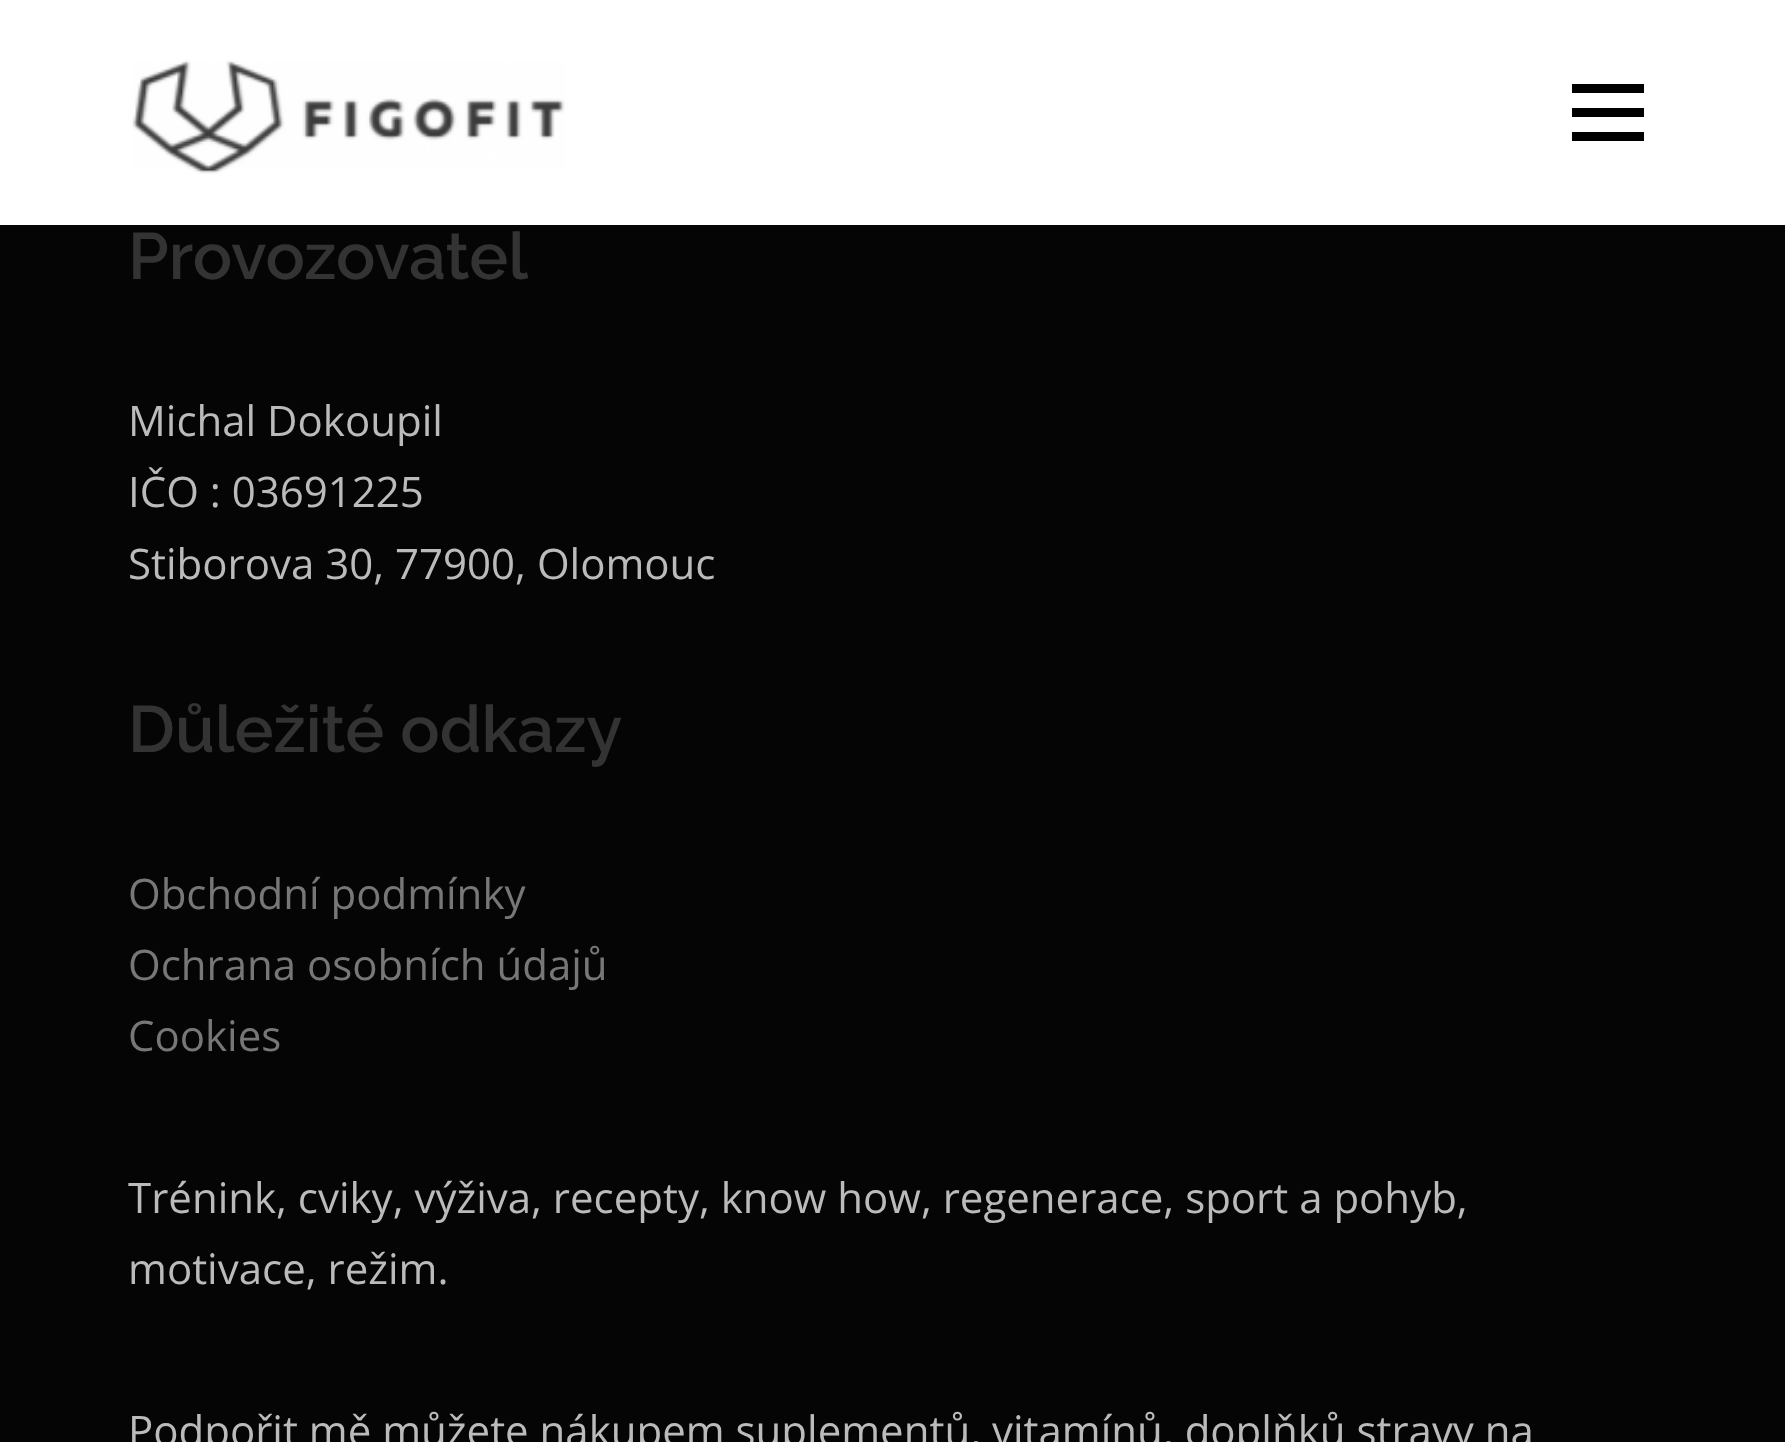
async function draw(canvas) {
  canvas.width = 1785
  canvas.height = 1442
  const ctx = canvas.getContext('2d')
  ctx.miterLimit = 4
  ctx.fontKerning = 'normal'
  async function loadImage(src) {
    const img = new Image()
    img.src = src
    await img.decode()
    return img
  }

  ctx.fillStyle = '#050505'
  ctx.fillRect(0, 0, 1785, 1442)
  ctx.fillStyle = '#fff'
  ctx.fillRect(0, 0, 1785, 225)
  ctx.drawImage(await loadImage('image0.png'), 132, 60, 433, 114)
  ctx.fillStyle = '#000'
  ctx.fillRect(1572, 108, 72, 9)
  ctx.fillRect(1572, 84, 72, 9)
  ctx.fillRect(1572, 132, 72, 9)
  ctx.font = '600 65.5px Raleway'
  ctx.fillStyle = '#333'
  ctx.fillText('Provozovatel', 128, 279)
  ctx.font = '42px Open Sans'
  ctx.fillStyle = '#bbb'
  ctx.fillText('Michal Dokoupil', 128, 436)
  ctx.fillText('IČO : 03691225', 128, 507)
  ctx.fillText('Stiborova 30, 77900, Olomouc', 128, 579)
  ctx.font = '600 65.5px Raleway'
  ctx.fillStyle = '#333'
  ctx.fillText('Důležité odkazy', 128, 752)
  ctx.font = '42px Open Sans'
  ctx.fillStyle = '#777'
  ctx.fillText('Obchodní podmínky', 128, 909)
  ctx.fillText('Ochrana osobních údajů', 128, 980)
  ctx.fillText('Cookies', 128, 1051)
  ctx.fillStyle = '#bbb'
  ctx.fillText('Trénink, cviky, výživa, recepty, know how, regenerace, sport a pohyb,', 128, 1213)
  ctx.fillText('motivace, režim.', 128, 1284)
  ctx.fillText('Podpořit mě můžete nákupem suplementů, vitamínů, doplňků stravy na', 128, 1446)
}

draw(document.querySelector('canvas'))
